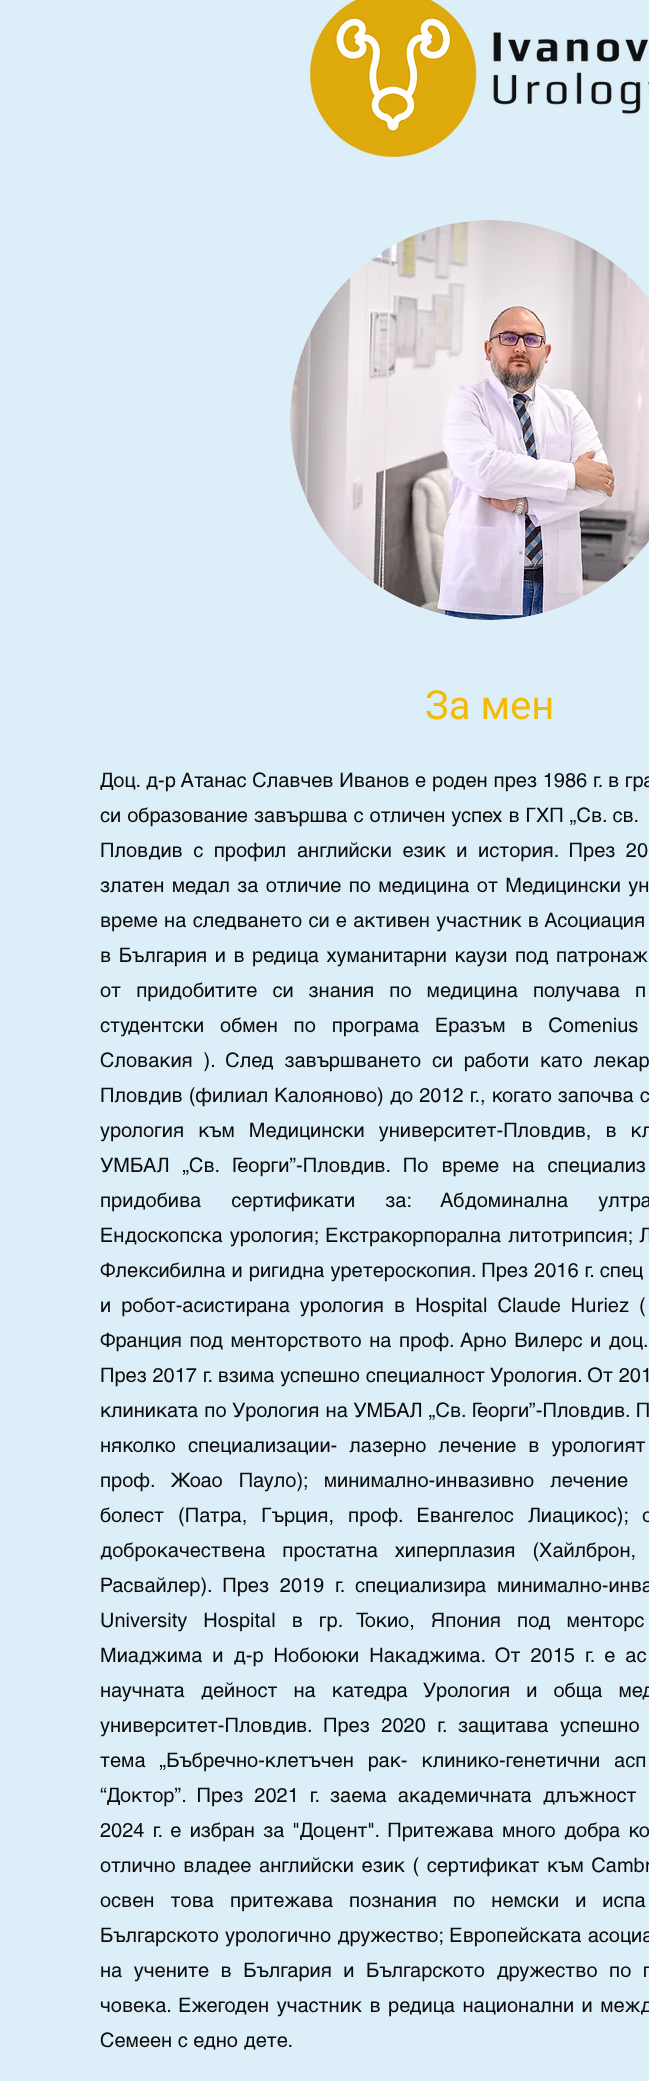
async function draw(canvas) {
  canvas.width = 649
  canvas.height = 2081
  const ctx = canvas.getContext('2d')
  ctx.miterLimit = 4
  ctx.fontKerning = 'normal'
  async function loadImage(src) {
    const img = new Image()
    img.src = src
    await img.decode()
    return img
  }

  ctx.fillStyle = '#dceff8'
  ctx.fillRect(0, 0, 649, 2081)
  ctx.drawImage(await loadImage('image0.png'), 308, 0, 341, 157)
  ctx.drawImage(await loadImage('image1.png'), 290, 220, 359, 400)
  ctx.font = '40px Roboto'
  ctx.fillStyle = '#f3bb06'
  ctx.fillText('За мен', 425, 719)
  ctx.wordSpacing = '0.25px'
  ctx.font = '20px helvetica'
  ctx.fillStyle = '#0c0c0c'
  ctx.fillText('Доц. д-р Атанас Славчев Иванов е роден през 1986 г. в гра', 100, 787)
  ctx.wordSpacing = '0.5px'
  ctx.fillText('си образование завършва с отличен успех в ГХП „Св. св.', 100, 822)
  ctx.wordSpacing = '5px'
  ctx.fillText('Пловдив с профил английски език и история. През 20', 100, 857)
  ctx.wordSpacing = '1.75px'
  ctx.fillText('златен медал за отличие по медицина от Медицински ун', 100, 892)
  ctx.wordSpacing = '0.75px'
  ctx.fillText('време на следването си е активен участник в Асоциация', 100, 927)
  ctx.wordSpacing = '2px'
  ctx.fillText('в България и в редица хуманитарни каузи под патронаж', 100, 962)
  ctx.wordSpacing = '9.5px'
  ctx.fillText('от придобитите си знания по медицина получава п', 100, 997)
  ctx.wordSpacing = '10.25px'
  ctx.fillText('студентски обмен по програма Еразъм в Comenius', 100, 1032)
  ctx.wordSpacing = '5.25px'
  ctx.fillText('Словакия ). След завършването си работи като лекар', 100, 1067)
  ctx.wordSpacing = '0.5px'
  ctx.fillText('Пловдив (филиал Калояново) до 2012 г., когато започва с', 100, 1102)
  ctx.wordSpacing = '8.5px'
  ctx.fillText('урология към Медицински университет-Пловдив, в кл', 100, 1137)
  ctx.wordSpacing = '7.5px'
  ctx.fillText('УМБАЛ „Св. Георги”-Пловдив. По време на специализ', 100, 1172)
  ctx.wordSpacing = '24.5px'
  ctx.fillText('придобива сертификати за: Абдоминална ултра', 100, 1207)
  ctx.wordSpacing = '1.5px'
  ctx.fillText('Ендоскопска урология; Екстракорпорална литотрипсия; Л', 100, 1242)
  ctx.wordSpacing = '0.5px'
  ctx.fillText('Флексибилна и ригидна уретероскопия. През 2016 г. спец', 100, 1277)
  ctx.wordSpacing = '4.5px'
  ctx.fillText('и робот-асистирана урология в Hospital Claude Huriez (', 100, 1312)
  ctx.wordSpacing = '2px'
  ctx.fillText('Франция под менторството на проф. Арно Вилерс и доц.', 100, 1347)
  ctx.wordSpacing = '0.25px'
  ctx.fillText('През 2017 г. взима успешно специалност Урология. От 201', 100, 1382)
  ctx.wordSpacing = '0.75px'
  ctx.fillText('клиниката по Урология на УМБАЛ „Св. Георги”-Пловдив. П', 100, 1417)
  ctx.wordSpacing = '6.5px'
  ctx.fillText('няколко специализации- лазерно лечение в урологият', 100, 1452)
  ctx.wordSpacing = '10.5px'
  ctx.fillText('проф. Жоао Пауло); минимално-инвазивно лечение', 100, 1487)
  ctx.wordSpacing = '8.5px'
  ctx.fillText('болест (Патра, Гърция, проф. Евангелос Лиацикос); о', 100, 1522)
  ctx.wordSpacing = '11.5px'
  ctx.fillText('доброкачествена простатна хиперплазия (Хайлброн,', 100, 1557)
  ctx.wordSpacing = '5.25px'
  ctx.fillText('Расвайлер). През 2019 г. специализира минимално-инва', 100, 1592)
  ctx.wordSpacing = '10.5px'
  ctx.fillText('University Hospital в гр. Токио, Япония под менторс', 100, 1627)
  ctx.wordSpacing = '4.5px'
  ctx.fillText('Миаджима и д-р Нобоюки Накаджима. От 2015 г. е ас', 100, 1662)
  ctx.wordSpacing = '10.5px'
  ctx.fillText('научната дейност на катедра Урология и обща мед', 100, 1697)
  ctx.wordSpacing = '6px'
  ctx.fillText('университет-Пловдив. През 2020 г. защитава успешно', 100, 1732)
  ctx.wordSpacing = '8.5px'
  ctx.fillText('тема „Бъбречно-клетъчен рак- клинико-генетични асп', 100, 1767)
  ctx.wordSpacing = '5.5px'
  ctx.fillText('“Доктор”. През 2021 г. заема академичната длъжност', 100, 1802)
  ctx.wordSpacing = '2.75px'
  ctx.fillText('2024 г. е избран за "Доцент". Притежава много добра ко', 100, 1837)
  ctx.wordSpacing = '2px'
  ctx.fillText('отлично владее английски език ( сертификат към Cambr', 100, 1872)
  ctx.wordSpacing = '10.5px'
  ctx.fillText('освен това притежава познания по немски и испа', 100, 1907)
  ctx.wordSpacing = '0.75px'
  ctx.fillText('Българското урологично дружество; Европейската асоциа', 100, 1942)
  ctx.wordSpacing = '6px'
  ctx.fillText('на учените в България и Българското дружество по г', 100, 1977)
  ctx.wordSpacing = '2px'
  ctx.fillText('човека. Ежегоден участник в редица национални и межд', 100, 2012)
  ctx.wordSpacing = '0px'
  ctx.fillText('Семеен с едно дете.', 100, 2047)
}

draw(document.querySelector('canvas'))
